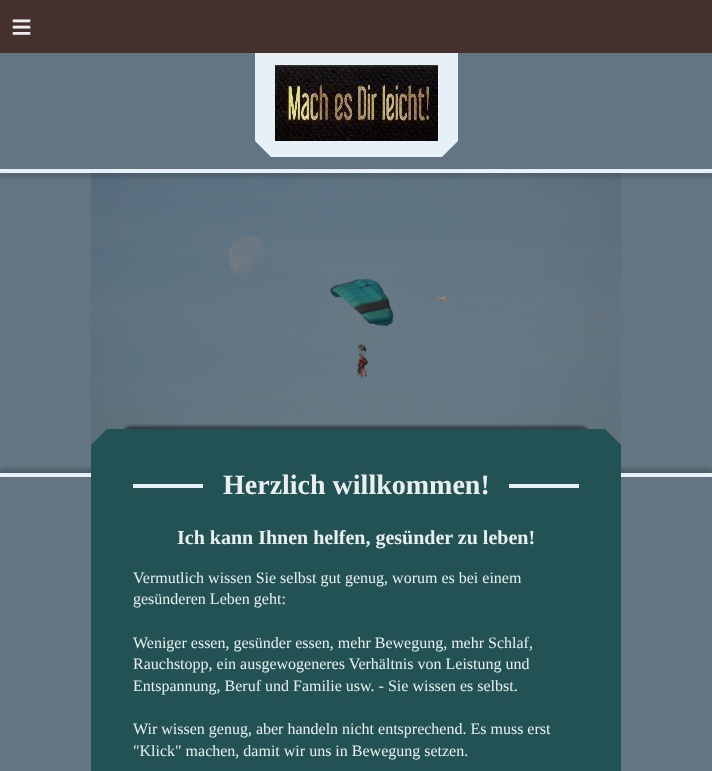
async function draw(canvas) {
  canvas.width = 712
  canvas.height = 771
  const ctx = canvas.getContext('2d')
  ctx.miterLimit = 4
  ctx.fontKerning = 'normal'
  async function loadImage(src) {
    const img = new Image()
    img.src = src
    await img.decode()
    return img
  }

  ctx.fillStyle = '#637582'
  ctx.fillRect(0, 0, 712, 771)
  ctx.fillStyle = '#47312e'
  ctx.fillRect(0, 0, 712, 53)
  ctx.letterSpacing = '10px'
  ctx.font = '36px Liberation Sans'
  ctx.fillStyle = '#e9eeee'
  ctx.fillText('≡', 11, 39)
  ctx.fillStyle = '#e6f0f7'
  ctx.fillRect(255, 53, 203, 88)
  ctx.drawImage(await loadImage('image0.png'), 275, 65, 163, 76)
  ctx.beginPath()
  ctx.moveTo(255, 141)
  ctx.lineTo(458, 141)
  ctx.lineTo(442, 157)
  ctx.lineTo(271, 157)
  ctx.closePath()
  ctx.fill()
  ctx.drawImage(await loadImage('image1.png'), 91, 173, 530, 272)
  ctx.fillStyle = '#00000033'
  ctx.filter = 'blur(2px)'
  ctx.beginPath()
  ctx.rect(0, 173, 712, 4)
  ctx.fill()
  ctx.filter = 'none'
  ctx.fillStyle = '#e6f0f7'
  ctx.fillRect(0, 169, 712, 4)
  ctx.save()
  ctx.beginPath()
  ctx.rect(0, 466, 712, 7)
  ctx.clip()
  ctx.fillStyle = '#00000033'
  ctx.filter = 'blur(2px)'
  ctx.beginPath()
  ctx.rect(0, 469, 712, 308)
  ctx.fill()
  ctx.filter = 'none'
  ctx.restore()
  ctx.fillRect(0, 473, 712, 4)
  ctx.fillStyle = '#225254'
  ctx.fillRect(91, 445, 530, 326)
  ctx.fillStyle = '#00000080'
  ctx.filter = 'blur(1.5px)'
  ctx.beginPath()
  ctx.roundRect(123, 426, 466, 16, 8)
  ctx.fill()
  ctx.filter = 'none'
  ctx.fillStyle = '#225254'
  ctx.beginPath()
  ctx.moveTo(621, 445)
  ctx.lineTo(91, 445)
  ctx.lineTo(107, 429)
  ctx.lineTo(605, 429)
  ctx.closePath()
  ctx.fill()
  ctx.fillStyle = '#e6f0f7'
  ctx.fillRect(133, 484, 446, 4)
  ctx.fillStyle = '#225254'
  ctx.fillRect(203, 484, 306, 4)
  ctx.letterSpacing = '0px'
  ctx.font = 'bold 28px Liberation Serif'
  ctx.fillStyle = '#e9eeee'
  ctx.fillText('Herzlich willkommen!', 223, 494)
  ctx.font = 'bold 20px Liberation Serif'
  ctx.fillText('Ich kann Ihnen helfen, gesünder zu leben!', 177, 544)
  ctx.font = '16px Liberation Serif'
  ctx.fillText('Vermutlich wissen Sie selbst gut genug, worum es bei einem', 133, 583)
  ctx.fillText('gesünderen Leben geht:', 133, 604)
  ctx.fillText('Weniger essen, gesünder essen, mehr Bewegung, mehr Schlaf,', 133, 648)
  ctx.fillText('Rauchstopp, ein ausgewogeneres Verhältnis von Leistung und', 133, 669)
  ctx.fillText('Entspannung, Beruf und Familie usw. - Sie wissen es selbst.', 133, 691)
  ctx.fillText('Wir wissen genug, aber handeln nicht entsprechend. Es muss erst', 133, 734)
  ctx.fillText('"Klick" machen, damit wir uns in Bewegung setzen.', 133, 756)
}

draw(document.querySelector('canvas'))
